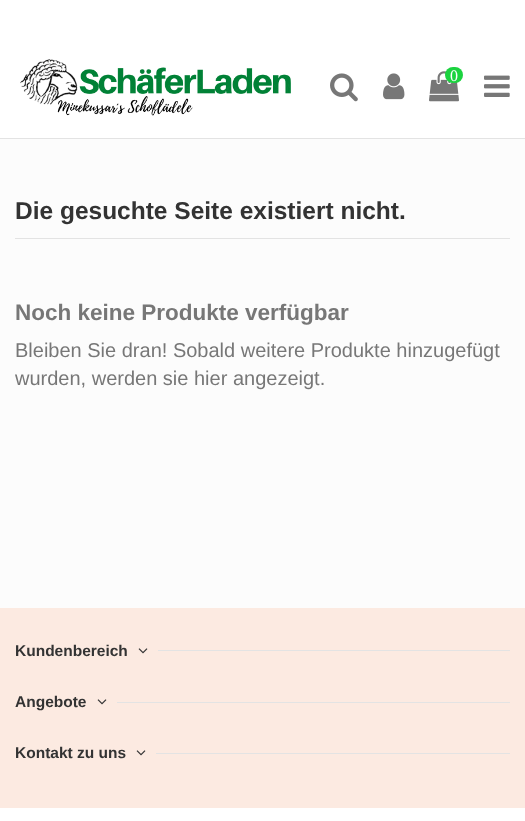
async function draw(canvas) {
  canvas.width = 525
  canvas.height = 821
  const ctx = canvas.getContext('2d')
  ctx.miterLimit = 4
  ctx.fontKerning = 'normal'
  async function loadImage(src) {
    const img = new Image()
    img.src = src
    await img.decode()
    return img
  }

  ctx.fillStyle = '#fff'
  ctx.fillRect(0, 0, 525, 821)
  ctx.fillStyle = '#e3e3e3'
  ctx.fillRect(0, 138, 525, 1)
  ctx.drawImage(await loadImage('image0.png'), 20, 59, 271, 57)
  ctx.drawImage(await loadImage('image1.png'), 330, 73, 28, 29)
  ctx.drawImage(await loadImage('image2.png'), 383, 73, 22, 27)
  ctx.drawImage(await loadImage('image3.png'), 429, 71, 30, 31)
  ctx.fillStyle = '#1bd33f'
  ctx.beginPath()
  ctx.roundRect(445, 67, 18, 16, 8)
  ctx.fill()
  ctx.font = '16px Liberation Serif'
  ctx.fillStyle = '#fff'
  ctx.fillText('0', 450, 81)
  ctx.drawImage(await loadImage('image4.png'), 484, 75, 26, 22)
  ctx.fillStyle = '#fcfcfc'
  ctx.fillRect(0, 139, 525, 469)
  ctx.fillStyle = '#e3e3e3'
  ctx.fillRect(15, 238, 495, 1)
  ctx.font = 'bold 24.5px Liberation Sans'
  ctx.fillStyle = '#333'
  ctx.fillText('Die gesuchte Seite existiert nicht.', 15, 219)
  ctx.font = 'bold 22.5px Liberation Sans'
  ctx.fillStyle = '#777'
  ctx.fillText('Noch keine Produkte verfügbar', 15, 320)
  ctx.font = '20px Liberation Sans'
  ctx.fillText('Bleiben Sie dran! Sobald weitere Produkte hinzugefügt', 15, 357)
  ctx.fillText('wurden, werden sie hier angezeigt.', 15, 385)
  ctx.fillStyle = '#fceae1'
  ctx.fillRect(0, 608, 525, 200)
  ctx.font = 'bold 15.5px Liberation Sans'
  ctx.fillStyle = '#333'
  ctx.fillText('Kundenbereich', 15, 656)
  ctx.drawImage(await loadImage('image5.png'), 138, 648, 10, 6)
  ctx.fillStyle = '#e3e3e3'
  ctx.fillRect(158, 650, 352, 1)
  ctx.fillStyle = '#333'
  ctx.fillText('Angebote', 15, 707)
  ctx.drawImage(await loadImage('image5.png'), 97, 699, 10, 6)
  ctx.fillStyle = '#e3e3e3'
  ctx.fillRect(117, 702, 393, 1)
  ctx.fillStyle = '#333'
  ctx.fillText('Kontakt zu uns', 15, 758)
  ctx.drawImage(await loadImage('image5.png'), 136, 750, 10, 6)
  ctx.fillStyle = '#e3e3e3'
  ctx.fillRect(156, 753, 354, 1)
}

draw(document.querySelector('canvas'))
